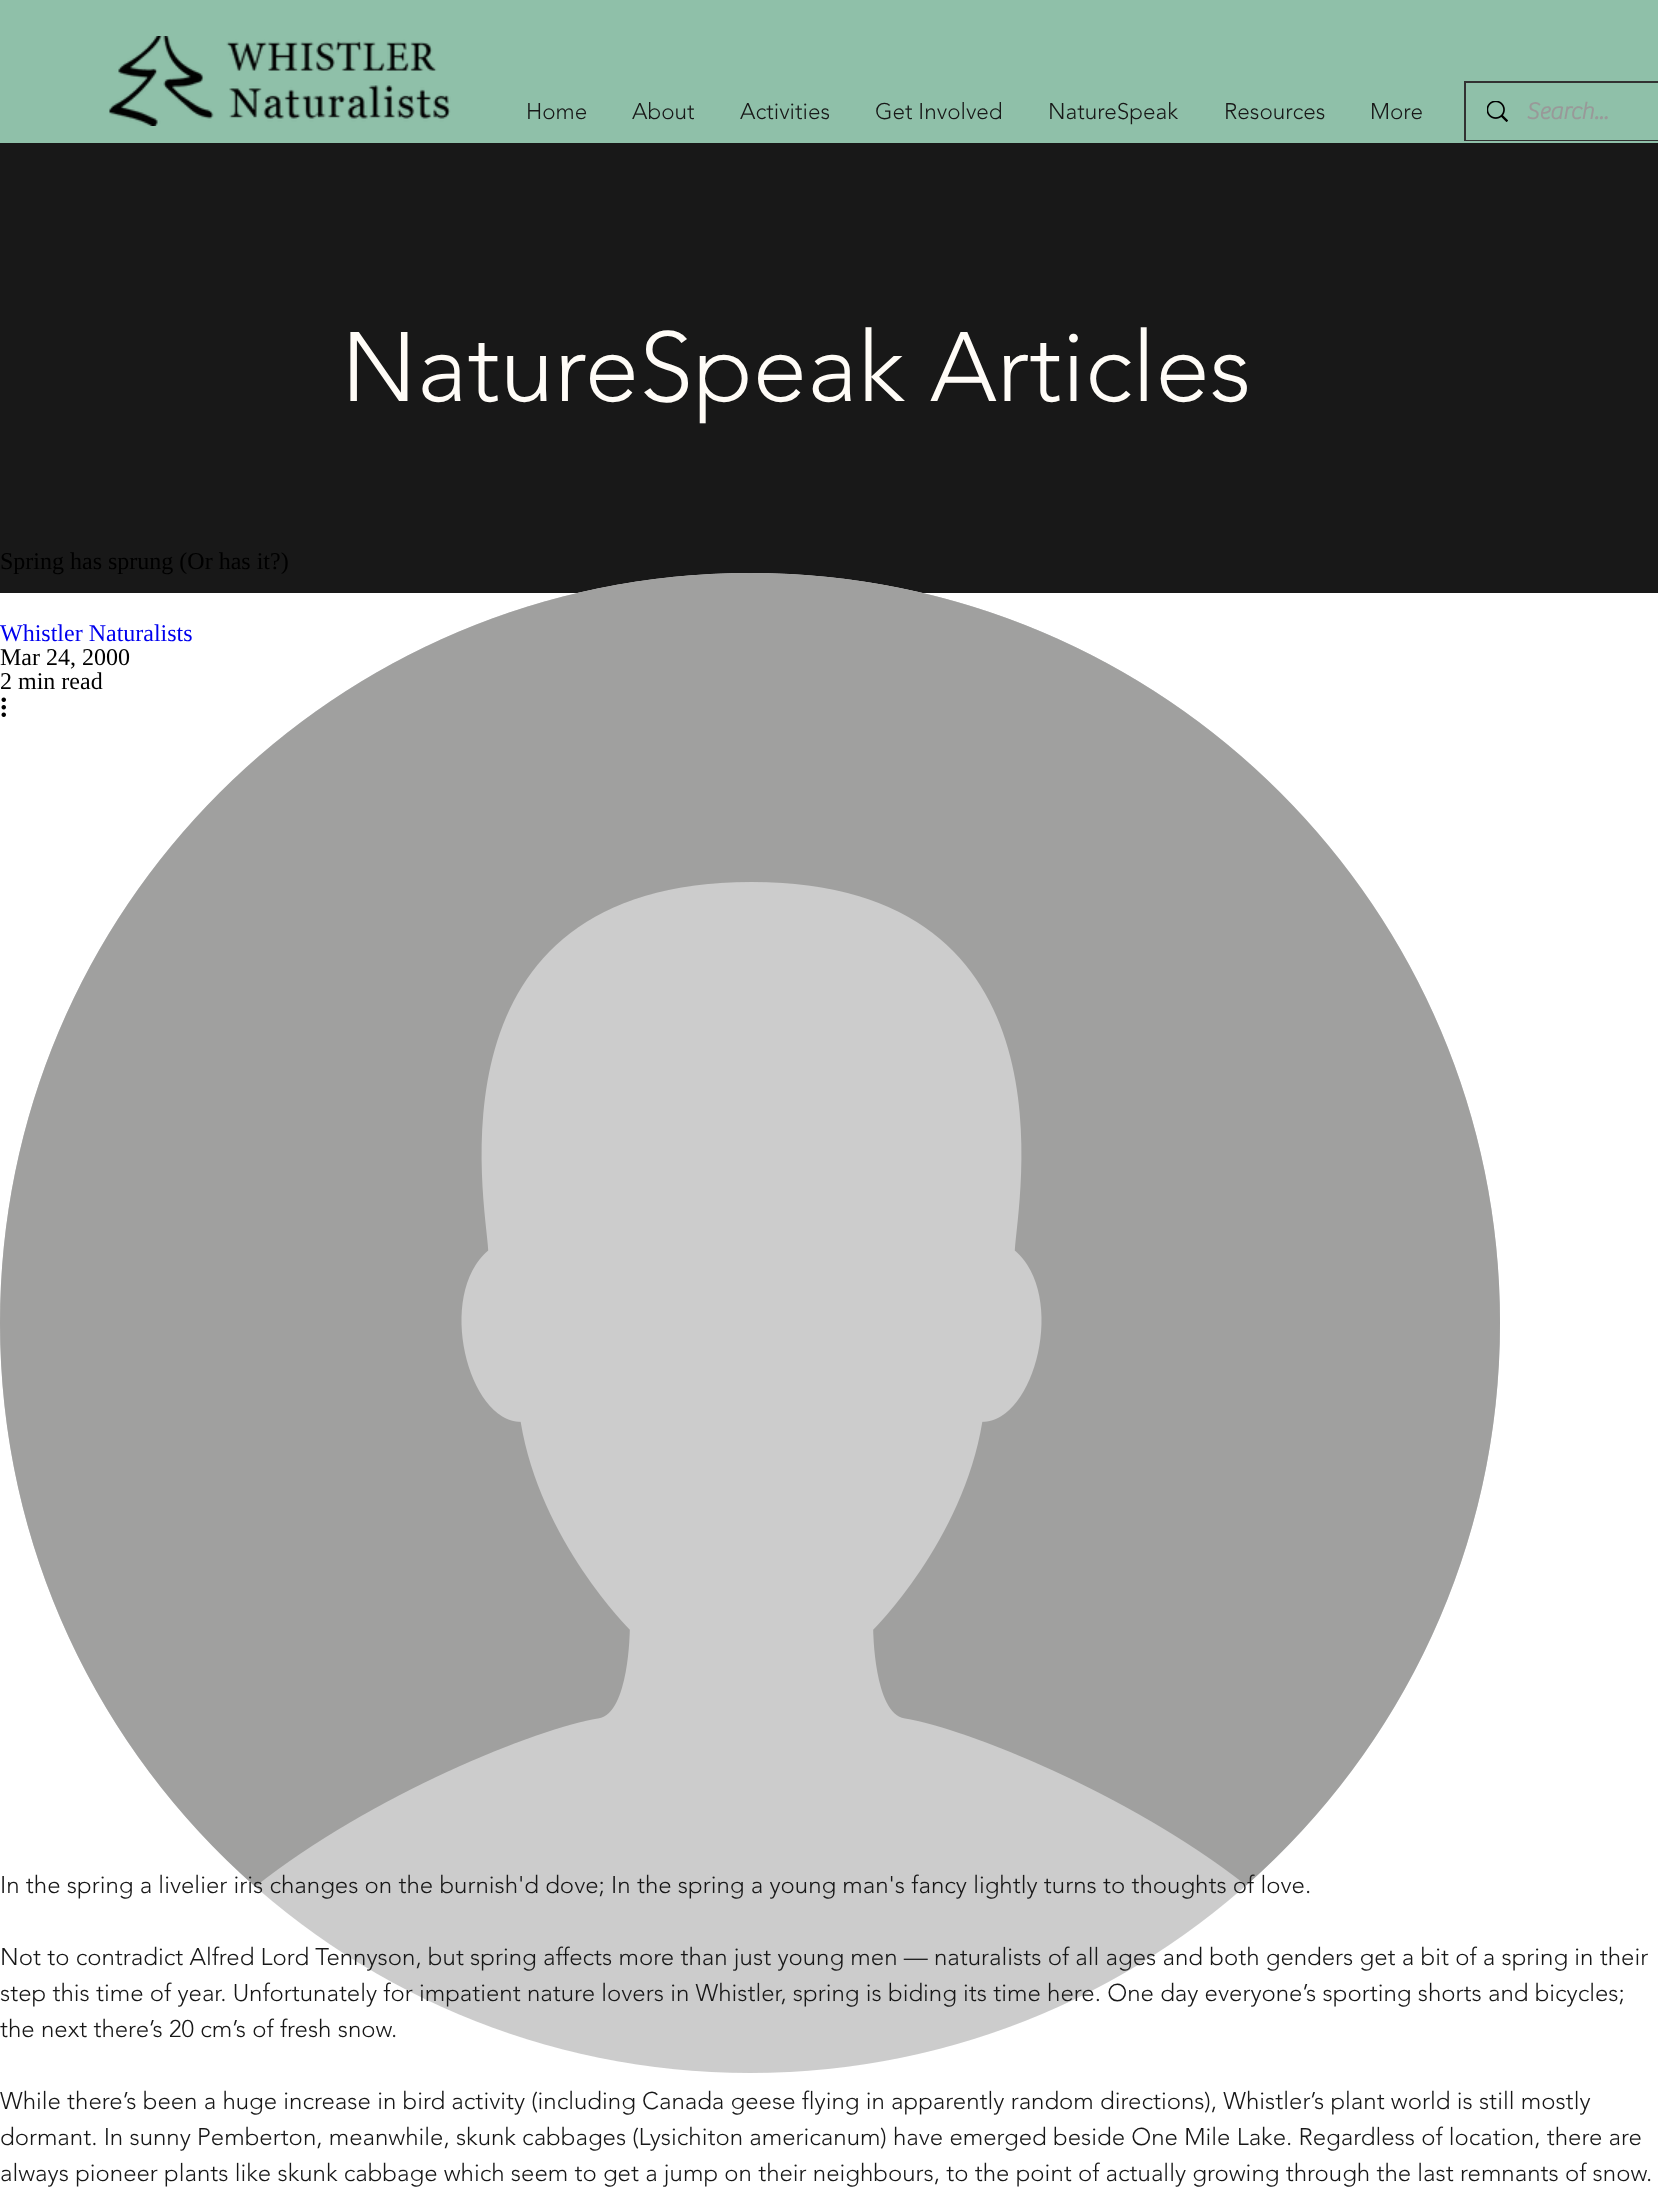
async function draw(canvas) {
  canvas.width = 1658
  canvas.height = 2203
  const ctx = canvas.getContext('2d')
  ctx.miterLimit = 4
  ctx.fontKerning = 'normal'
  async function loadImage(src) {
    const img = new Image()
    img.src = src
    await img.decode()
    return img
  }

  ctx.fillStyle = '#fff'
  ctx.fillRect(0, 0, 1658, 2203)
  ctx.fillStyle = '#8fc0a9'
  ctx.fillRect(0, 0, 1658, 143)
  ctx.drawImage(await loadImage('image0.png'), 109, 36, 342, 90)
  ctx.font = '300 22.5px "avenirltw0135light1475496"'
  ctx.fillStyle = '#181818'
  ctx.fillText('Home', 526, 119)
  ctx.fillText('About', 632, 119)
  ctx.fillText('Activities', 740, 119)
  ctx.fillText('Get Involved', 875, 119)
  ctx.fillText('NatureSpeak', 1048, 119)
  ctx.fillText('Resources', 1224, 119)
  ctx.fillText('More', 1370, 119)
  ctx.strokeStyle = '#323232'
  ctx.lineWidth = 2
  ctx.strokeRect(1465, 82, 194, 58)
  ctx.fillStyle = '#8fc0a9'
  ctx.fillRect(1466, 139, 192, 1)
  ctx.drawImage(await loadImage('image1.png'), 1487, 101, 21, 21)
  ctx.font = 'bold 24px "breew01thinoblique"'
  ctx.fillStyle = '#999'
  ctx.fillText('Search...', 1526, 119)
  ctx.fillStyle = '#181818'
  ctx.fillRect(0, 143, 1658, 450)
  ctx.font = '300 97.5px "avenirltw0135light1475496"'
  ctx.fillStyle = '#fffcf7'
  ctx.fillText('NatureSpeak Articles', 341, 401)
  ctx.font = '24px Liberation Serif'
  ctx.fillStyle = '#000'
  ctx.fillText('Spring has sprung (Or has it?)', 0, 569)
  ctx.fillStyle = '#00e'
  ctx.fillText('Whistler Naturalists', 0, 641)
  ctx.fillStyle = '#000'
  ctx.fillText('Mar 24, 2000', 0, 665)
  ctx.fillText('2 min read', 0, 689)
  ctx.drawImage(await loadImage('image2.png'), 0, 573, 1500, 1500)
  ctx.drawImage(await loadImage('image3.png'), 1, 697, 5, 20)
  ctx.font = '300 24px "avenirltw0135light1475496"'
  ctx.fillStyle = '#181818'
  ctx.fillText('In the spring a livelier iris changes on the burnish\'d dove; In the spring a young man\'s fancy lightly turns to thoughts of love.', 0, 1893)
  ctx.fillText('Not to contradict Alfred Lord Tennyson, but spring affects more than just young men — naturalists of all ages and both genders get a bit of a spring in their', 0, 1965)
  ctx.fillText('step this time of year. Unfortunately for impatient nature lovers in Whistler, spring is biding its time here. One day everyone’s sporting shorts and bicycles;', 0, 2001)
  ctx.fillText('the next there’s 20 cm’s of fresh snow.', 0, 2037)
  ctx.fillText('While there’s been a huge increase in bird activity (including Canada geese flying in apparently random directions), Whistler’s plant world is still mostly', 0, 2109)
  ctx.fillText('dormant. In sunny Pemberton, meanwhile, skunk cabbages (Lysichiton americanum) have emerged beside One Mile Lake. Regardless of location, there are', 0, 2145)
  ctx.fillText('always pioneer plants like skunk cabbage which seem to get a jump on their neighbours, to the point of actually growing through the last remnants of snow.', 0, 2181)
}

draw(document.querySelector('canvas'))
